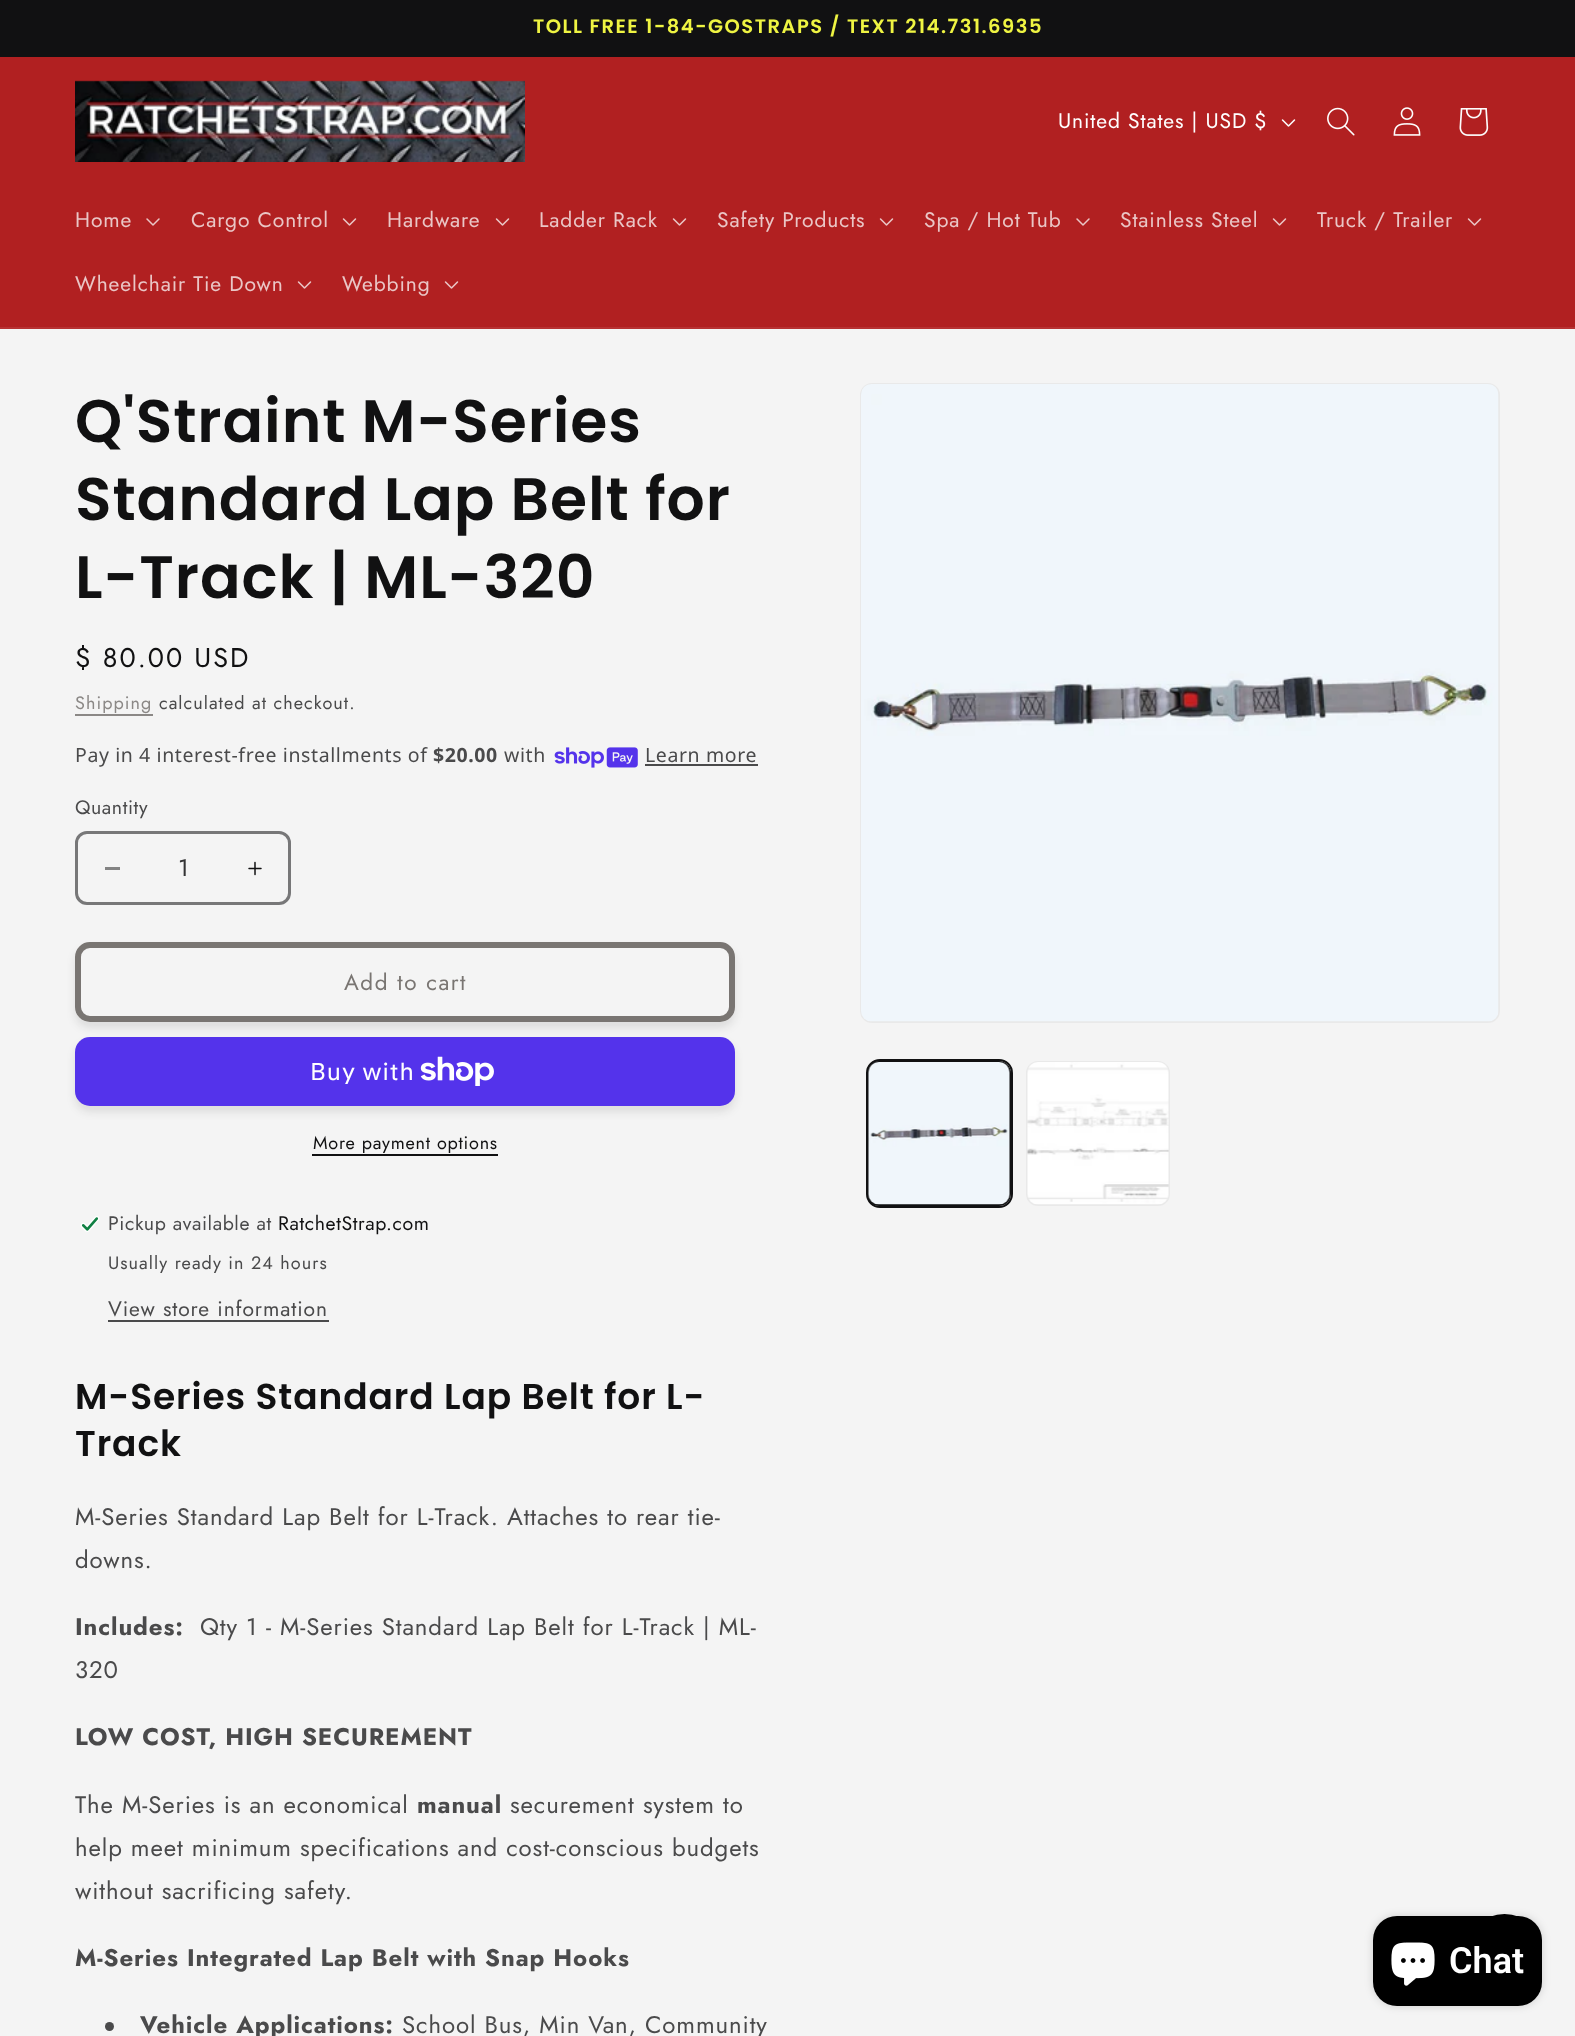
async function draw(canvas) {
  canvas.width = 1575
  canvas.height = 2036
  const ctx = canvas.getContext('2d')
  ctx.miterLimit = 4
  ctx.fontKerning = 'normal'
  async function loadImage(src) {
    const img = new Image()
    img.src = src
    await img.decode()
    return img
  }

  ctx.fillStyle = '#f4f4f4'
  ctx.fillRect(0, 0, 1575, 2036)
  ctx.fillStyle = '#111112'
  ctx.fillRect(0, 0, 1575, 57)
  ctx.letterSpacing = '1.5px'
  ctx.font = '600 19.5px Poppins'
  ctx.fillStyle = '#eff442'
  ctx.fillText('TOLL FREE 1-84-GOSTRAPS / TEXT 214.731.6935', 533, 33)
  ctx.fillStyle = '#b12021'
  ctx.fillRect(0, 57, 1575, 270)
  ctx.fillStyle = '#b73233'
  ctx.fillRect(0, 327, 1575, 2)
  ctx.drawImage(await loadImage('image0.png'), 75, 80, 450, 82)
  ctx.letterSpacing = '0.9px'
  ctx.font = '21px Jost'
  ctx.fillStyle = '#fff'
  ctx.fillText('United States | USD $', 1058, 128)
  ctx.drawImage(await loadImage('image1.png'), 1281, 119, 15, 8)
  ctx.drawImage(await loadImage('image2.png'), 1327, 107, 28, 29)
  ctx.drawImage(await loadImage('image3.png'), 1393, 107, 28, 29)
  ctx.drawImage(await loadImage('image4.png'), 1459, 108, 30, 28)
  ctx.fillStyle = '#eac6c6'
  ctx.fillText('Home', 75, 227)
  ctx.drawImage(await loadImage('image5.png'), 146, 218, 14, 8)
  ctx.fillText('Cargo Control', 191, 227)
  ctx.drawImage(await loadImage('image6.png'), 342, 218, 15, 8)
  ctx.fillText('Hardware', 387, 227)
  ctx.drawImage(await loadImage('image6.png'), 495, 218, 15, 8)
  ctx.fillText('Ladder Rack', 539, 227)
  ctx.drawImage(await loadImage('image6.png'), 672, 218, 15, 8)
  ctx.fillText('Safety Products', 717, 227)
  ctx.drawImage(await loadImage('image6.png'), 879, 218, 15, 8)
  ctx.fillText('Spa / Hot Tub', 924, 227)
  ctx.drawImage(await loadImage('image5.png'), 1076, 218, 14, 8)
  ctx.fillText('Stainless Steel', 1120, 227)
  ctx.drawImage(await loadImage('image6.png'), 1272, 218, 15, 8)
  ctx.fillText('Truck / Trailer', 1317, 227)
  ctx.drawImage(await loadImage('image6.png'), 1467, 218, 15, 8)
  ctx.fillText('Wheelchair Tie Down', 75, 291)
  ctx.drawImage(await loadImage('image6.png'), 297, 281, 15, 8)
  ctx.fillText('Webbing', 342, 291)
  ctx.drawImage(await loadImage('image6.png'), 444, 281, 15, 8)
  ctx.font = '600 60px Poppins'
  ctx.fillStyle = '#111112'
  ctx.fillText('Q\'Straint M-Series', 75, 442)
  ctx.fillText('Standard Lap Belt for', 75, 520)
  ctx.fillText('L-Track | ML-320', 75, 598)
  ctx.letterSpacing = '2px'
  ctx.font = '27px Jost'
  ctx.fillText('$ 80.00 USD', 75, 667)
  ctx.letterSpacing = '1.05px'
  ctx.font = '18px Jost'
  ctx.fillStyle = '#8b8886'
  ctx.fillText('Shipping', 75, 709)
  ctx.fillRect(75, 714, 78, 2)
  ctx.fillStyle = '#4a4a4b'
  ctx.fillText('calculated at checkout.', 159, 709)
  ctx.letterSpacing = '0.6px'
  ctx.font = '19.5px Noto Sans'
  ctx.fillText('Pay in 4 interest-free installments of', 75, 762)
  ctx.font = 'bold 19.5px Noto Sans'
  ctx.fillText('$20.00', 433, 762)
  ctx.font = '19.5px Noto Sans'
  ctx.fillText('with', 504, 762)
  ctx.drawImage(await loadImage('image7.png'), 554, 747, 84, 21)
  ctx.fillText('Learn more', 645, 762)
  ctx.fillRect(645, 764, 113, 2)
  ctx.font = '19.5px Jost'
  ctx.fillText('Quantity', 75, 814)
  ctx.fillStyle = '#838383'
  ctx.fillRect(105, 867, 15, 3)
  ctx.drawImage(await loadImage('image8.png'), 248, 861, 14, 15)
  ctx.beginPath()
  ctx.roundRect(76.5, 832.5, 213, 71, 10.5)
  ctx.strokeStyle = '#777778'
  ctx.lineWidth = 3
  ctx.stroke()
  ctx.letterSpacing = '0px'
  ctx.font = '24px Jost'
  ctx.fillStyle = '#333334'
  ctx.fillText('1', 178, 876)
  ctx.fillStyle = '#1111121a'
  ctx.filter = 'blur(4px)'
  ctx.beginPath()
  ctx.roundRect(75, 948, 660, 80, 15)
  ctx.fill()
  ctx.filter = 'none'
  ctx.fillStyle = '#f4f4f4'
  ctx.beginPath()
  ctx.roundRect(75, 942, 660, 80, 15)
  ctx.fill()
  ctx.beginPath()
  ctx.roundRect(78, 945, 654, 74, 12)
  ctx.strokeStyle = '#f4f4f4'
  ctx.lineWidth = 6
  ctx.stroke()
  ctx.beginPath()
  ctx.roundRect(78, 945, 654, 74, 12)
  ctx.strokeStyle = '#797572'
  ctx.stroke()
  ctx.letterSpacing = '1.5px'
  ctx.font = '22.5px Jost'
  ctx.fillStyle = '#797572'
  ctx.fillText('Add to cart', 344, 990)
  ctx.fillStyle = '#1111121a'
  ctx.filter = 'blur(4px)'
  ctx.beginPath()
  ctx.roundRect(75, 1043, 660, 69, 15)
  ctx.fill()
  ctx.filter = 'none'
  ctx.fillStyle = '#5433eb'
  ctx.beginPath()
  ctx.roundRect(75, 1037, 660, 69, 15)
  ctx.fill()
  ctx.letterSpacing = '0.9px'
  ctx.font = '24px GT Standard'
  ctx.fillStyle = '#fff'
  ctx.fillText('Buy with', 310, 1080)
  ctx.drawImage(await loadImage('image9.png'), 420, 1056, 74, 30)
  ctx.letterSpacing = '0.75px'
  ctx.font = '18px Jost'
  ctx.fillStyle = '#111112'
  ctx.fillText('More payment options', 313, 1149)
  ctx.fillRect(312, 1154, 186, 2)
  ctx.drawImage(await loadImage('image10.png'), 80, 1216, 20, 16)
  ctx.letterSpacing = '0.6px'
  ctx.font = '19.5px Jost'
  ctx.fillStyle = '#4a4a4b'
  ctx.fillText('Pickup available at', 108, 1230)
  ctx.fillStyle = '#111112'
  ctx.fillText('RatchetStrap.com', 278, 1230)
  ctx.letterSpacing = '1.05px'
  ctx.font = '18px Jost'
  ctx.fillStyle = '#4a4a4b'
  ctx.fillText('Usually ready in 24 hours', 108, 1269)
  ctx.letterSpacing = '0.9px'
  ctx.font = '21px Jost'
  ctx.fillText('View store information', 108, 1316)
  ctx.fillRect(108, 1320, 221, 2)
  ctx.font = '600 36px Poppins'
  ctx.fillStyle = '#111112'
  ctx.fillText('M-Series Standard Lap Belt for L-', 75, 1409)
  ctx.fillText('Track', 75, 1456)
  ctx.font = '24px Jost'
  ctx.fillStyle = '#4a4a4b'
  ctx.fillText('M-Series Standard Lap Belt for L-Track. Attaches to rear tie-', 75, 1525)
  ctx.fillText('downs.', 75, 1568)
  ctx.font = 'bold 24px Jost'
  ctx.fillText('Includes:', 75, 1635)
  ctx.font = '24px Jost'
  ctx.fillText('Qty 1 - M-Series Standard Lap Belt for L-Track | ML-', 200, 1635)
  ctx.fillText('320', 75, 1678)
  ctx.font = 'bold 24px Jost'
  ctx.fillText('LOW COST, HIGH SECUREMENT', 75, 1745)
  ctx.font = '24px Jost'
  ctx.fillText('The M-Series is an economical', 75, 1813)
  ctx.font = 'bold 24px Jost'
  ctx.fillText('manual', 417, 1813)
  ctx.font = '24px Jost'
  ctx.fillText('securement system to', 510, 1813)
  ctx.fillText('help meet minimum specifications and cost-conscious budgets', 75, 1856)
  ctx.fillText('without sacrificing safety.', 75, 1899)
  ctx.font = 'bold 24px Jost'
  ctx.fillText('M-Series Integrated Lap Belt with Snap Hooks', 75, 1966)
  ctx.beginPath()
  ctx.arc(109.5, 2026.5, 4.5, 0, 2 * Math.PI)
  ctx.fill()
  ctx.fillText('Vehicle Applications:', 140, 2033)
  ctx.font = '24px Jost'
  ctx.fillText('School Bus, Min Van, Community', 402, 2033)
  ctx.beginPath()
  ctx.roundRect(861, 384, 638, 638, 11)
  ctx.strokeStyle = '#e9e9e9'
  ctx.lineWidth = 2
  ctx.stroke()
  ctx.drawImage(await loadImage('image11.png'), 861, 384, 638, 638)
  ctx.beginPath()
  ctx.roundRect(867, 1060, 145, 147, 13)
  ctx.strokeStyle = '#111112'
  ctx.stroke()
  ctx.beginPath()
  ctx.roundRect(868, 1062, 142, 143, 11)
  ctx.stroke()
  ctx.drawImage(await loadImage('image12.png'), 868, 1062, 142, 143)
  ctx.beginPath()
  ctx.roundRect(1027, 1062, 142, 143, 11)
  ctx.strokeStyle = '#e9e9e9'
  ctx.stroke()
  ctx.drawImage(await loadImage('image13.png'), 1027, 1062, 142, 143)
  ctx.beginPath()
  ctx.arc(1504.5, 1951.5, 36, 0, 2 * Math.PI)
  ctx.strokeStyle = '#000'
  ctx.lineWidth = 3
  ctx.stroke()
  ctx.fillStyle = '#00000026'
  ctx.filter = 'blur(4px)'
  ctx.beginPath()
  ctx.roundRect(1373, 1916, 169, 90, 24)
  ctx.fill()
  ctx.filter = 'none'
  ctx.fillStyle = '#000'
  ctx.beginPath()
  ctx.roundRect(1373, 1916, 169, 90, 24)
  ctx.fill()
  ctx.drawImage(await loadImage('image14.png'), 1391, 1942, 44, 44)
  ctx.letterSpacing = '0px'
  ctx.font = '600 36px Roboto'
  ctx.fillStyle = '#fff'
  ctx.fillText('Chat', 1449, 1973)
}

draw(document.querySelector('canvas'))
